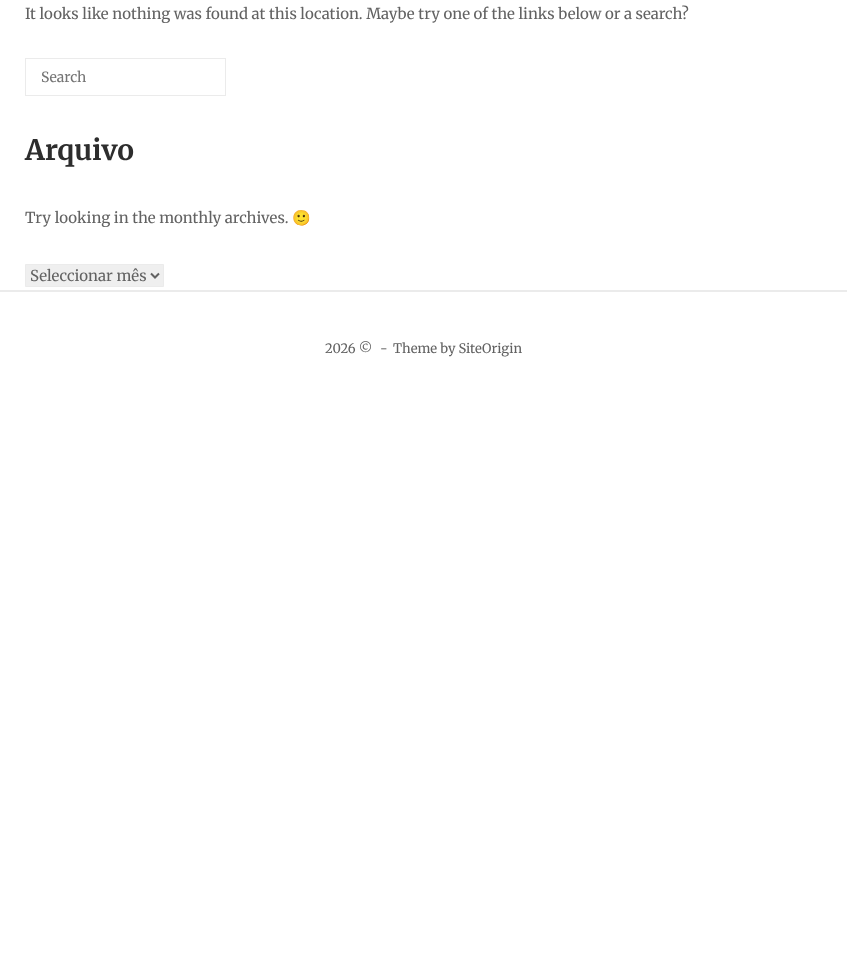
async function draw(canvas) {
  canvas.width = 847
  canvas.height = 977
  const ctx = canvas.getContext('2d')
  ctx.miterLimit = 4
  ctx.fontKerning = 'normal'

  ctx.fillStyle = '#fff'
  ctx.fillRect(0, 0, 847, 977)
  ctx.font = '15px Merriweather'
  ctx.fillStyle = '#626262'
  ctx.fillText('It looks like nothing was found at this location. Maybe try one of the links below or a search?', 25, 19)
  ctx.strokeStyle = '#ebebeb'
  ctx.strokeRect(25.5, 58.5, 200, 37)
  ctx.font = '14px Merriweather'
  ctx.fillStyle = '#757575'
  ctx.fillText('Search', 41, 82)
  ctx.font = 'bold 28px Merriweather'
  ctx.fillStyle = '#2d2d2d'
  ctx.fillText('Arquivo', 25, 160)
  ctx.font = '15px Merriweather'
  ctx.fillStyle = '#626262'
  ctx.fillText('Try looking in the monthly archives.', 25, 223)
  ctx.font = '15px Noto Color Emoji'
  ctx.fillText('🙂', 292, 223)
  ctx.fillStyle = '#efefef'
  ctx.beginPath()
  ctx.rect(25.5, 264.5, 138, 22)
  ctx.fill()
  ctx.stroke()
  ctx.beginPath()
  ctx.moveTo(151, 273.5)
  ctx.lineTo(155, 277.5)
  ctx.lineTo(159, 273.5)
  ctx.strokeStyle = '#626262'
  ctx.lineWidth = 2
  ctx.stroke()
  ctx.font = '15px Merriweather'
  ctx.fillStyle = '#626262'
  ctx.fillText('Seleccionar mês', 30, 281)
  ctx.fillStyle = '#ebebeb'
  ctx.fillRect(0, 290, 847, 2)
  ctx.font = '13px Merriweather'
  ctx.fillStyle = '#626262'
  ctx.fillText('2026 ©', 325, 353)
  ctx.fillText('-', 380, 353)
  ctx.fillText('Theme by SiteOrigin', 393, 353)
}

draw(document.querySelector('canvas'))
